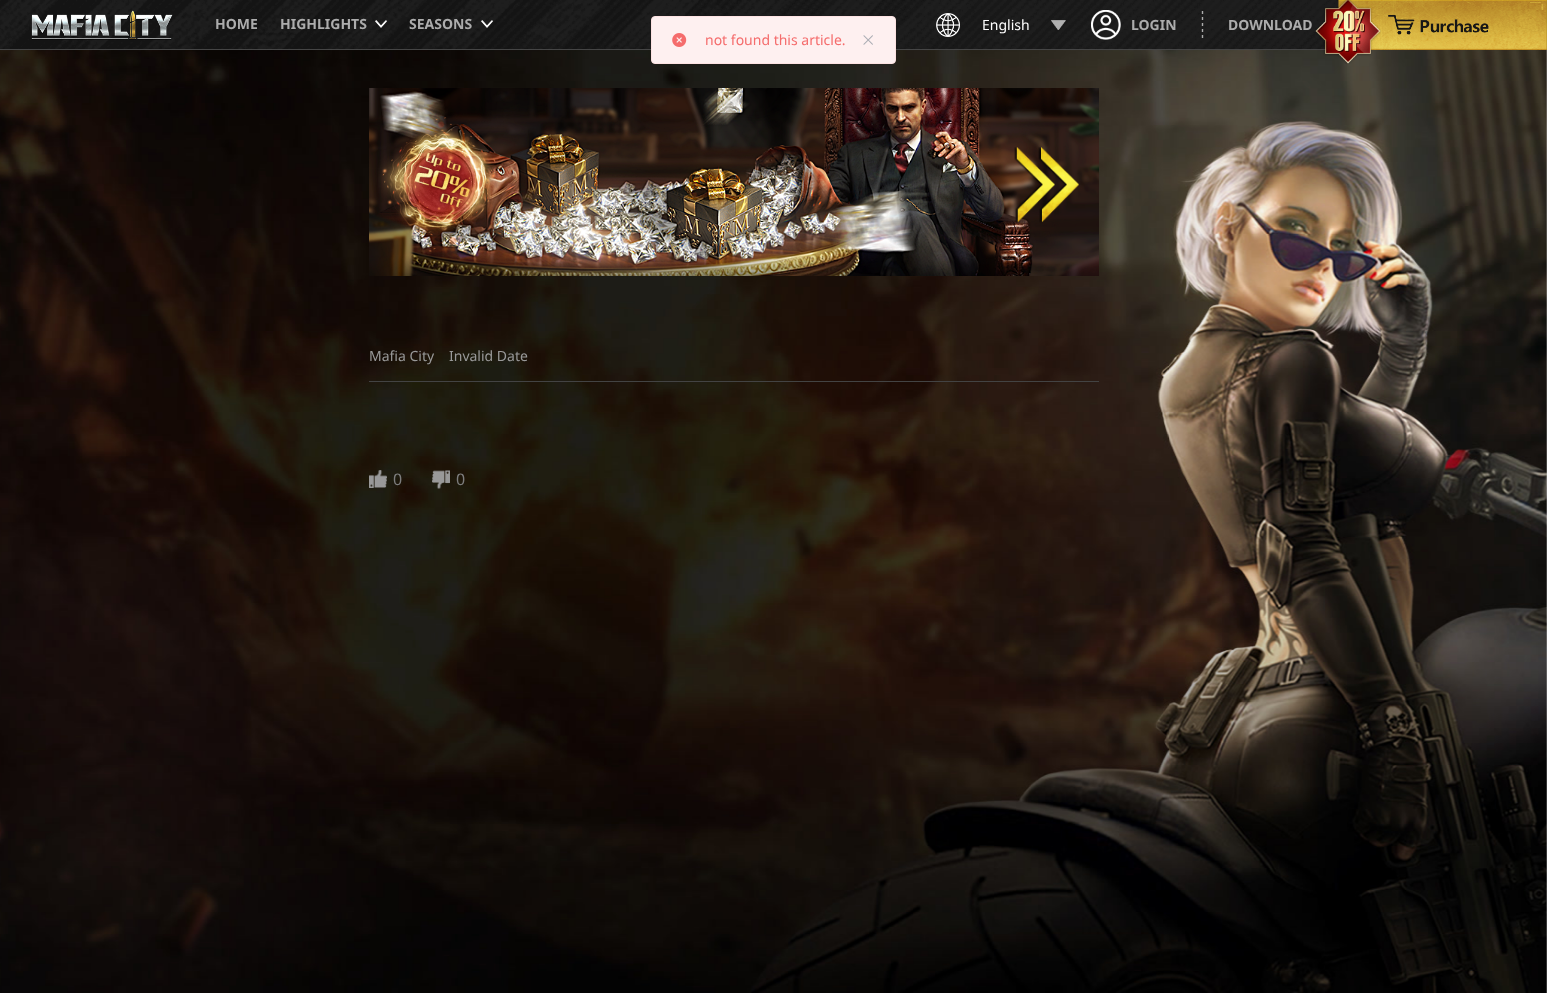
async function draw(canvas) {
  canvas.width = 1547
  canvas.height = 993
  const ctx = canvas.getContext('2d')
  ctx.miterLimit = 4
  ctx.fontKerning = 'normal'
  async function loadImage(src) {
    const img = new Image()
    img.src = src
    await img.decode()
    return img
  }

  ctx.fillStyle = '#fff'
  ctx.fillRect(0, 0, 1547, 993)
  ctx.drawImage(await loadImage('image0.png'), 0, 0, 1547, 50)
  ctx.drawImage(await loadImage('image1.png'), 31, 10, 142, 30)
  ctx.font = 'bold 14px Noto Sans'
  ctx.fillStyle = '#acacac'
  ctx.fillText('HOME', 215, 29)
  ctx.fillText('HIGHLIGHTS', 280, 29)
  ctx.drawImage(await loadImage('image2.png'), 375, 20, 12, 8)
  ctx.fillText('SEASONS', 409, 29)
  ctx.drawImage(await loadImage('image3.png'), 481, 20, 12, 8)
  ctx.drawImage(await loadImage('image4.png'), 936, 13, 24, 24)
  ctx.font = '14px Noto Sans'
  ctx.fillStyle = '#fff'
  ctx.fillText('English', 982, 30)
  ctx.drawImage(await loadImage('image5.png'), 1051, 20, 15, 10)
  ctx.drawImage(await loadImage('image6.png'), 1091, 10, 30, 30)
  ctx.font = 'bold 14px Noto Sans'
  ctx.fillStyle = '#acacac'
  ctx.fillText('LOGIN', 1131, 30)
  ctx.beginPath()
  ctx.moveTo(1202.5, 11)
  ctx.lineTo(1202.5, 41)
  ctx.strokeStyle = '#acacac'
  ctx.lineWidth = 1.4
  ctx.setLineDash([3, 3])
  ctx.stroke()
  ctx.fillText('DOWNLOAD', 1228, 30)
  ctx.drawImage(await loadImage('image8.png'), 1338, 0, 209, 50)
  ctx.drawImage(await loadImage('image9.png'), 0, 50, 1547, 943)
  ctx.drawImage(await loadImage('image7.png'), 1315, 0, 66, 64)
  ctx.drawImage(await loadImage('image10.png'), 369, 88, 730, 188)
  ctx.drawImage(await loadImage('image11.png'), 378, 117, 119, 135)
  ctx.drawImage(await loadImage('image12.png'), 1014, 147, 65, 76)
  ctx.fillStyle = '#434343'
  ctx.fillRect(369, 381, 730, 1)
  ctx.font = '14px Noto Sans'
  ctx.fillStyle = '#999'
  ctx.fillText('Mafia City', 369, 361)
  ctx.fillText('Invalid Date', 449, 361)
  ctx.drawImage(await loadImage('image13.png'), 369, 470, 18, 18)
  ctx.font = '16px Noto Sans'
  ctx.fillStyle = '#7d7d7d'
  ctx.fillText('0', 393, 485)
  ctx.drawImage(await loadImage('image14.png'), 432, 470, 18, 19)
  ctx.fillText('0', 456, 485)
  ctx.fillStyle = '#fef0f0'
  ctx.beginPath()
  ctx.roundRect(651.5, 16.5, 244, 47, 3.5)
  ctx.fill()
  ctx.strokeStyle = '#fde2e2'
  ctx.lineWidth = 1
  ctx.setLineDash([])
  ctx.stroke()
  ctx.drawImage(await loadImage('image15.png'), 672, 33, 15, 14)
  ctx.font = '14px Noto Sans'
  ctx.fillStyle = '#f56c6c'
  ctx.fillText('not found this article.', 705, 45)
  ctx.drawImage(await loadImage('image16.png'), 863, 35, 10, 10)
}

draw(document.querySelector('canvas'))
